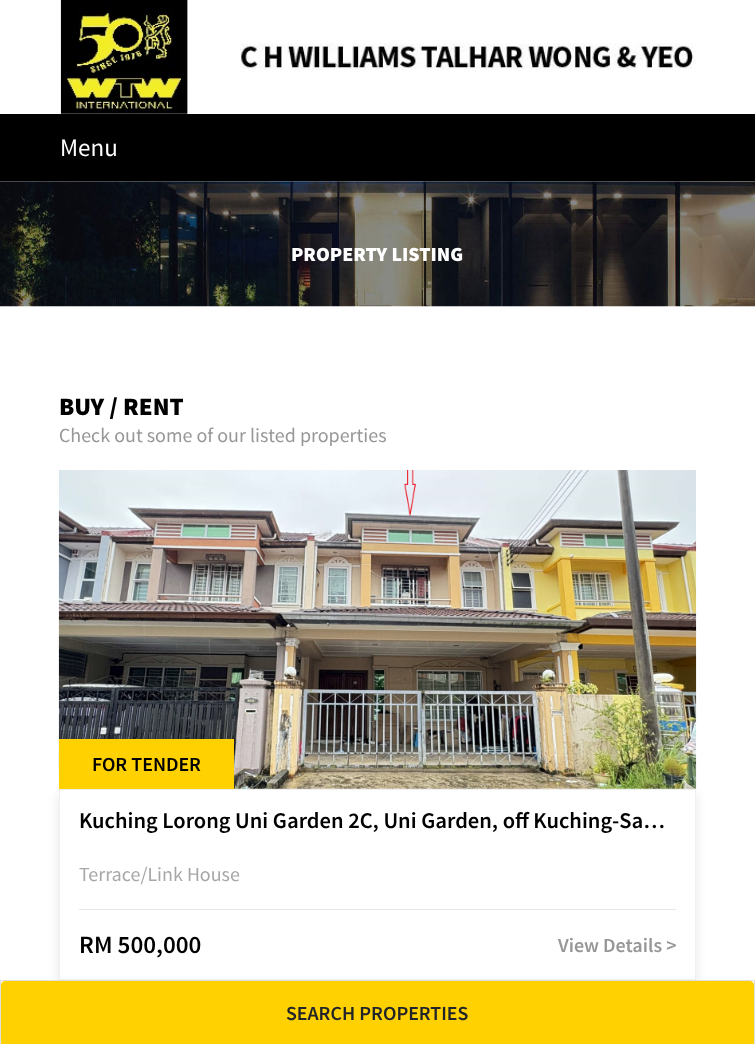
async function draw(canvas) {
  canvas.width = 755
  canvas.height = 1044
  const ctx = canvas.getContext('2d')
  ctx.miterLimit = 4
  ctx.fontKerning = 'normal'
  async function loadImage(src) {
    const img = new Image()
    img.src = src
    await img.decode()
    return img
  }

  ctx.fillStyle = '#fff'
  ctx.fillRect(0, 0, 755, 1044)
  ctx.drawImage(await loadImage('image0.png'), 59, 0, 637, 114)
  ctx.fillStyle = '#000'
  ctx.fillRect(0, 114, 755, 67)
  ctx.font = '25px Source Sans Pro'
  ctx.fillStyle = '#fff'
  ctx.fillText('Menu', 60, 156)
  ctx.drawImage(await loadImage('image1.png'), 0, 181, 755, 126)
  ctx.font = '900 20px Source Sans Pro'
  ctx.fillText('PROPERTY LISTING', 291, 261)
  ctx.font = '900 25px Source Sans Pro'
  ctx.fillStyle = '#000'
  ctx.fillText('BUY / RENT', 59, 415)
  ctx.font = '20px Source Sans Pro'
  ctx.fillStyle = '#979797'
  ctx.fillText('Check out some of our listed properties', 59, 442)
  ctx.save()
  ctx.beginPath()
  ctx.moveTo(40, 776)
  ctx.lineTo(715, 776)
  ctx.lineTo(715, 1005)
  ctx.lineTo(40, 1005)
  ctx.closePath()
  ctx.moveTo(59, 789)
  ctx.lineTo(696, 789)
  ctx.lineTo(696, 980)
  ctx.lineTo(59, 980)
  ctx.closePath()
  ctx.clip('evenodd')
  ctx.fillStyle = '#e6e6e6'
  ctx.filter = 'blur(6px)'
  ctx.beginPath()
  ctx.rect(59, 795, 637, 191)
  ctx.fill()
  ctx.filter = 'none'
  ctx.restore()
  ctx.drawImage(await loadImage('image2.png'), 58, 470, 639, 319)
  ctx.fillStyle = '#ffd101'
  ctx.fillRect(59, 739, 175, 50)
  ctx.font = '600 20px Source Sans Pro'
  ctx.fillStyle = '#000'
  ctx.fillText('FOR TENDER', 92, 771)
  ctx.strokeStyle = '#efefef'
  ctx.strokeRect(59.5, 789.5, 636, 190)
  ctx.font = '600 22.5px Source Sans Pro'
  ctx.fillText('Kuching Lorong Uni Garden 2C, Uni Garden, off Kuching-Sa…', 79, 828)
  ctx.font = '20px Source Sans Pro'
  ctx.fillStyle = '#a7a7a7'
  ctx.fillText('Terrace/Link House', 79, 881)
  ctx.fillStyle = '#e6e6e6'
  ctx.fillRect(79, 909, 597, 1)
  ctx.font = '600 25px Source Sans Pro'
  ctx.fillStyle = '#000'
  ctx.fillText('RM 500,000', 79, 953)
  ctx.font = '600 20px Source Sans Pro'
  ctx.fillStyle = '#979797'
  ctx.fillText('View Details >', 558, 952)
  ctx.fillStyle = '#fff'
  ctx.fillRect(52, 981, 651, 4)
  ctx.strokeStyle = '#dfdfdf'
  ctx.strokeRect(0.5, 980.5, 754, 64)
  ctx.fillStyle = '#ffd101'
  ctx.beginPath()
  ctx.roundRect(1.5, 981.5, 752, 62, [3.5, 3.5, 0, 0])
  ctx.fill()
  ctx.strokeStyle = '#ffd101'
  ctx.stroke()
  ctx.fillStyle = '#212529'
  ctx.fillText('SEARCH PROPERTIES', 286, 1020)
}

draw(document.querySelector('canvas'))
